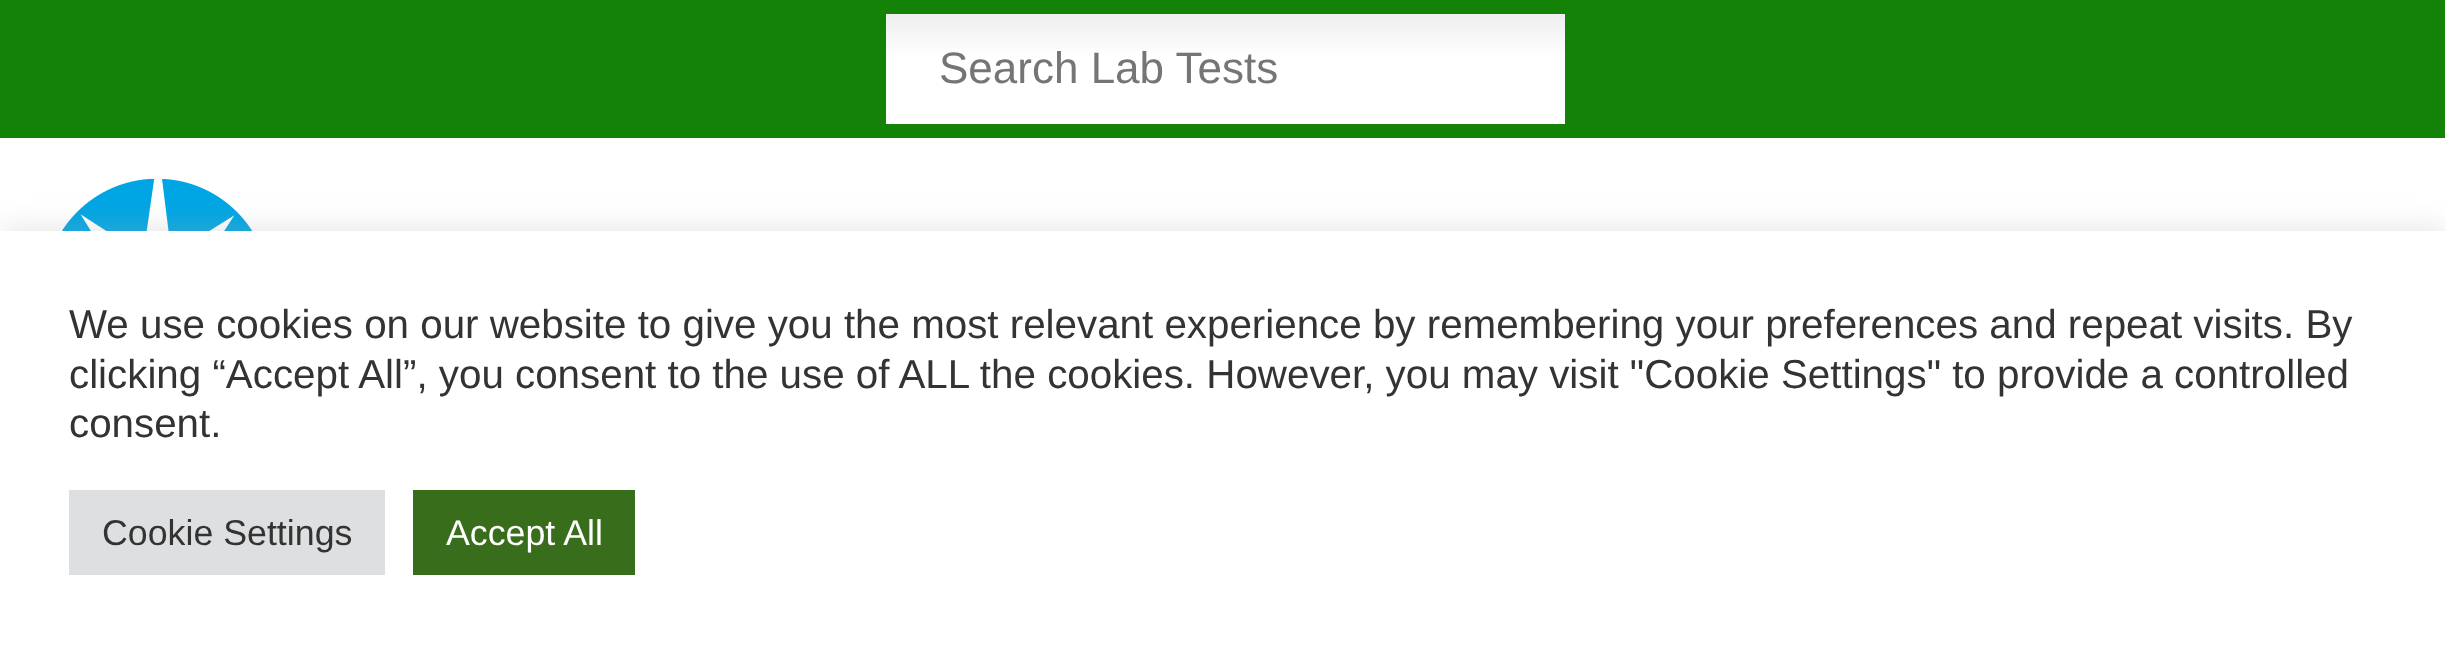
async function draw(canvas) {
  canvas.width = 2445
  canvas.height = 657
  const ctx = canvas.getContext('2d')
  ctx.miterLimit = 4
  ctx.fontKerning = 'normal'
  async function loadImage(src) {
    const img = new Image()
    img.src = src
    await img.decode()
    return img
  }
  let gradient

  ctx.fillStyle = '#fff'
  ctx.fillRect(0, 0, 2445, 657)
  ctx.fillStyle = '#148207'
  ctx.fillRect(0, 0, 2445, 138)
  gradient = ctx.createLinearGradient(1225, 14, 1225, 124)
  gradient.addColorStop(0, '#eee')
  gradient.addColorStop(0.4, '#fff')
  ctx.fillStyle = gradient
  ctx.fillRect(886, 14, 679, 110)
  ctx.font = '44px Liberation Sans'
  ctx.fillStyle = '#757575'
  ctx.fillText('Search Lab Tests', 939, 83)
  ctx.drawImage(await loadImage('image0.png'), 62, 179, 191, 52)
  ctx.fillStyle = '#acabab4d'
  ctx.filter = 'blur(14px)'
  ctx.beginPath()
  ctx.rect(0, 228, 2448, 427)
  ctx.fill()
  ctx.filter = 'none'
  ctx.fillStyle = '#fff'
  ctx.fillRect(0, 231, 2445, 426)
  ctx.font = '40.33px Liberation Sans'
  ctx.fillStyle = '#333'
  ctx.fillText('We use cookies on our website to give you the most relevant experience by remembering your preferences and repeat visits. By', 69, 338)
  ctx.fillText('clicking “Accept All”, you consent to the use of ALL the cookies. However, you may visit "Cookie Settings" to provide a controlled', 69, 388)
  ctx.fillText('consent.', 69, 437)
  ctx.fillStyle = '#dedfe0'
  ctx.fillRect(69, 490, 316, 85)
  ctx.font = '35.75px Liberation Sans'
  ctx.fillStyle = '#333'
  ctx.fillText('Cookie Settings', 102, 545)
  ctx.fillStyle = '#386d1b'
  ctx.fillRect(413, 490, 222, 85)
  ctx.fillStyle = '#fff'
  ctx.fillText('Accept All', 446, 545)
}

draw(document.querySelector('canvas'))
